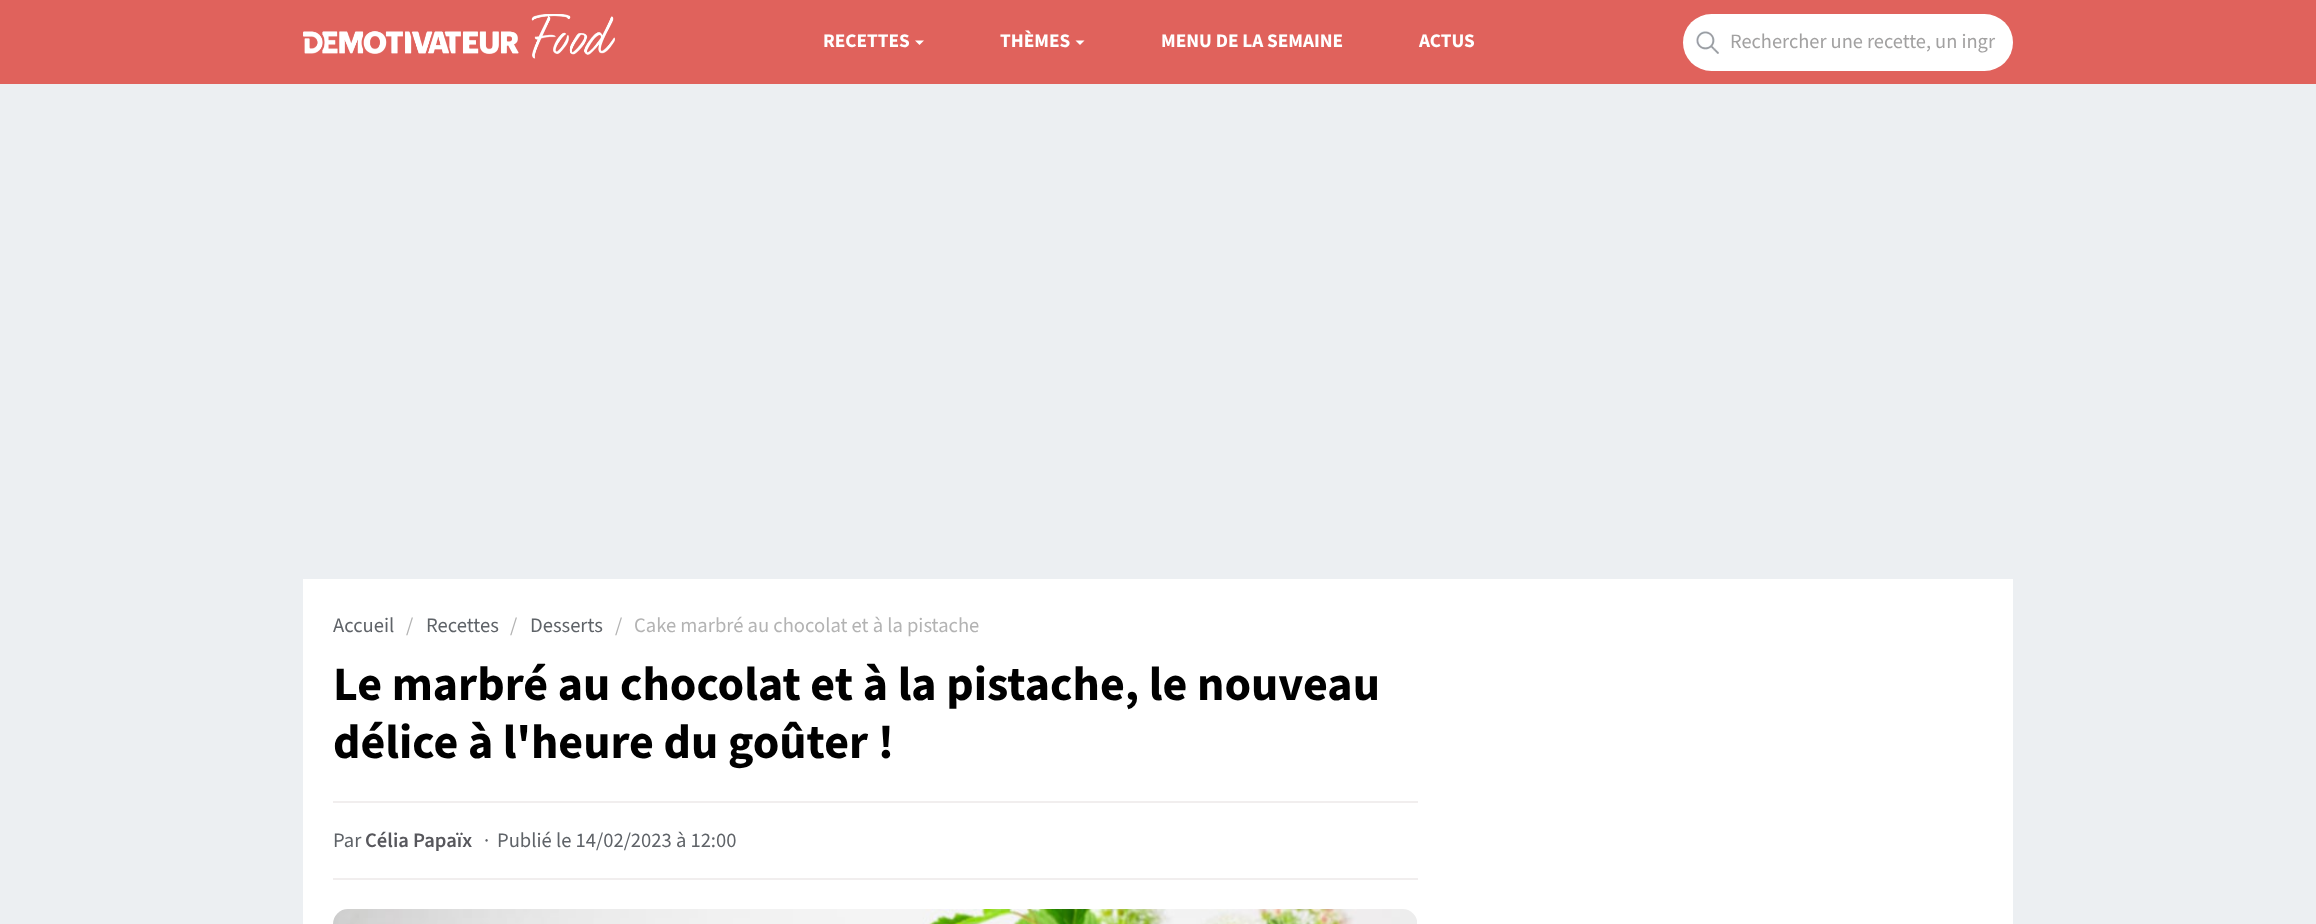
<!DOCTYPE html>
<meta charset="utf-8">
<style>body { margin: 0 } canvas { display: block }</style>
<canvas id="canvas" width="2316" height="924"></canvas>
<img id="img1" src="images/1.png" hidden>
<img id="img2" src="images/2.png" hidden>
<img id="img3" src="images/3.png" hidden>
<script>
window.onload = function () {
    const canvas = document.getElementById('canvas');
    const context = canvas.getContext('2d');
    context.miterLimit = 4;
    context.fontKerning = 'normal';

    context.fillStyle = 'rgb(236, 239, 242)';
    context.fillRect(0, 0, 2316, 924);
    context.fillStyle = 'rgb(224, 98, 92)';
    context.fillRect(0, 0, 2316, 84);
    context.drawImage(document.getElementById('img1'), 303, 14, 312, 45);
    context.fillStyle = 'rgb(255, 255, 255)';
    context.beginPath();
    context.moveTo(915, 40.5);
    context.lineTo(924, 40.5);
    context.lineTo(919.5, 45);
    context.closePath();
    context.fill();
    context.beginPath();
    context.moveTo(1075.5, 40.5);
    context.lineTo(1084.5, 40.5);
    context.lineTo(1080, 45);
    context.closePath();
    context.fill();
    context.beginPath();
    context.roundRect(1683, 14, 330, 57, 28.5);
    context.fill();
    context.drawImage(document.getElementById('img2'), 1696, 31, 23, 23);
    context.fillRect(303, 579, 1710, 345);
    context.fillStyle = 'rgb(241, 238, 238)';
    context.fillRect(333, 801, 1085, 2);
    context.fillRect(333, 878, 1085, 2);
    context.drawImage(document.getElementById('img3'), 333, 909, 1084, 15);
    context.font = 'bold 19.25px "Source Sans 3"';
    context.fillStyle = 'rgb(255, 255, 255)';
    context.fillText('RECETTES', 823, 47);
    context.fillText('THÈMES', 1000, 47);
    context.fillText('MENU DE LA SEMAINE', 1161, 47);
    context.fillText('ACTUS', 1419, 47);
    context.font = '20.4px "Source Sans 3"';
    context.fillStyle = 'rgb(162, 161, 161)';
    context.fillText('Rechercher une recette, un ingr', 1730, 48);
    context.font = '20.6px "Source Sans 3"';
    context.fillStyle = 'rgb(95, 99, 104)';
    context.fillText('Accueil', 333, 632);
    context.fillStyle = 'rgb(179, 179, 179)';
    context.fillText('/', 406, 632);
    context.fillStyle = 'rgb(95, 99, 104)';
    context.fillText('Recettes', 426, 632);
    context.fillStyle = 'rgb(179, 179, 179)';
    context.fillText('/', 510, 632);
    context.fillStyle = 'rgb(95, 99, 104)';
    context.fillText('Desserts', 530, 632);
    context.fillStyle = 'rgb(179, 179, 179)';
    context.fillText('/', 615, 632);
    context.fillText('Cake marbré au chocolat et à la pistache', 634, 632);
    context.font = 'bold 48px "Source Sans 3"';
    context.fillStyle = 'rgb(0, 0, 0)';
    context.fillText('Le marbré au chocolat et à la pistache, le nouveau', 333, 700);
    context.fillText('délice à l\'heure du goûter !', 333, 758);
    context.font = '20.6px "Source Sans 3"';
    context.fillStyle = 'rgb(95, 99, 104)';
    context.fillText('Par', 333, 847);
    context.font = '600 20.6px "Source Sans 3"';
    context.fillStyle = 'rgb(87, 87, 92)';
    context.fillText('Célia Papaïx', 365, 847);
    context.font = '20.6px "Source Sans 3"';
    context.fillStyle = 'rgb(95, 99, 104)';
    context.fillText('·', 484, 847);
    context.fillText('Publié le 14/02/2023 à 12:00', 497, 847);
};
</script>
